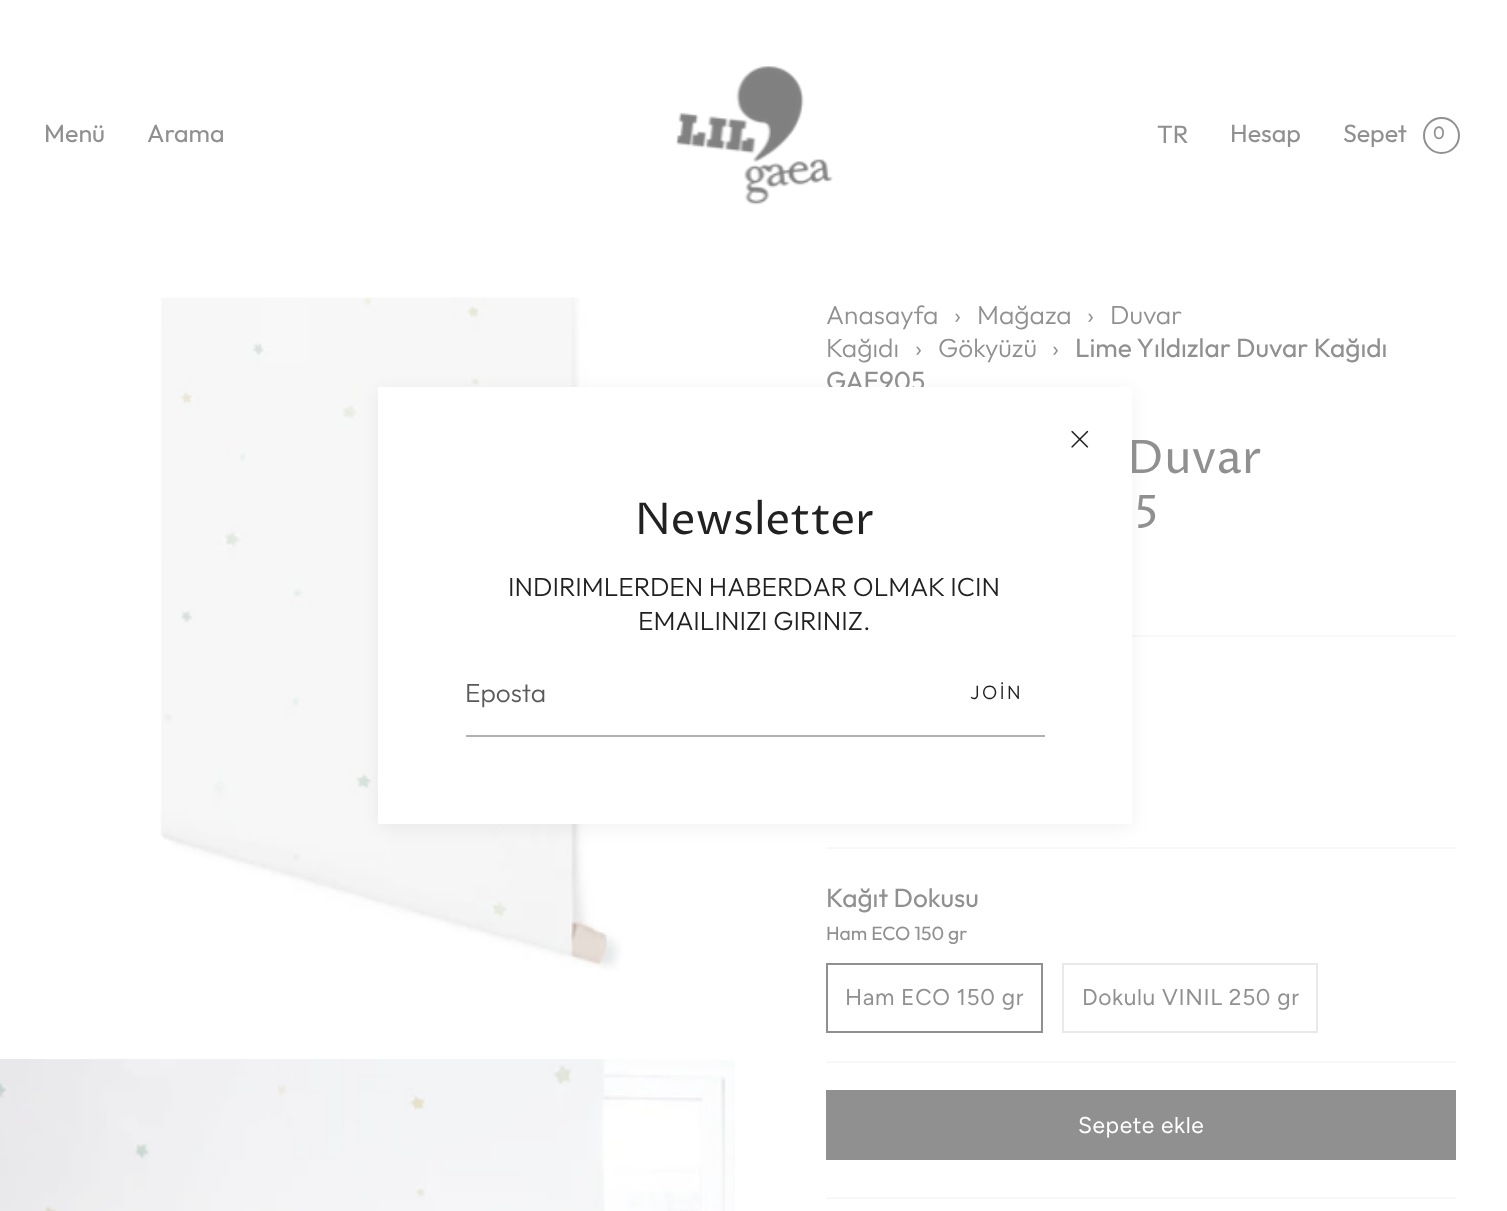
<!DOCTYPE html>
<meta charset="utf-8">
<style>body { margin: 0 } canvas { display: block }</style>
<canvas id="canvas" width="1507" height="1211"></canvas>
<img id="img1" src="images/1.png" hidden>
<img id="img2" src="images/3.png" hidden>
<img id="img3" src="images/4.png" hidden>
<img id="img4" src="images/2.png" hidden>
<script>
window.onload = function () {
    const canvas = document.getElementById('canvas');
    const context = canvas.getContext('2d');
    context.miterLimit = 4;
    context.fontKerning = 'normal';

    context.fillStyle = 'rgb(255, 255, 255)';
    context.fillRect(0, 0, 1507, 1211);
    context.drawImage(document.getElementById('img1'), 675, 65, 158, 140);
    context.beginPath();
    context.arc(1441.5, 135.5, 17.5, 0, 2 * Math.PI);
    context.strokeStyle = 'rgb(144, 144, 144)';
    context.lineWidth = 2;
    context.stroke();
    context.drawImage(document.getElementById('img2'), 160, 297, 463, 674);
    context.fillStyle = 'rgb(248, 248, 248)';
    context.fillRect(1132, 635, 324, 2);
    context.fillRect(826, 847, 630, 2);
    context.fillStyle = 'rgba(0, 0, 0, 0.05)';
    context.filter = 'blur(9px)';
    context.beginPath();
    context.rect(378, 390, 754, 438);
    context.fill();
    context.filter = 'none';
    context.drawImage(document.getElementById('img3'), 0, 1059, 735, 152);
    context.fillStyle = 'rgb(248, 248, 248)';
    context.fillRect(826, 1061, 630, 2);
    context.strokeRect(827, 964, 215, 68);
    context.strokeStyle = 'rgb(233, 233, 233)';
    context.strokeRect(1063, 964, 254, 68);
    context.fillStyle = 'rgb(144, 144, 144)';
    context.fillRect(826, 1090, 630, 70);
    context.fillStyle = 'rgb(248, 248, 248)';
    context.fillRect(826, 1197, 630, 2);
    context.font = '25px Outfit';
    context.fillStyle = 'rgb(144, 144, 144)';
    context.fillText('Menü', 44, 142);
    context.fillText('Arama', 147, 142);
    context.fillText('TR', 1157, 143);
    context.fillText('Hesap', 1230, 142);
    context.fillText('Sepet', 1343, 142);
    context.font = '18px Outfit';
    context.fillText('0', 1433, 139);
    context.font = '300 26.25px Outfit';
    context.fillText('Anasayfa', 826, 324);
    context.fillText('›', 954, 324);
    context.fillText('Mağaza', 977, 324);
    context.fillText('›', 1087, 324);
    context.fillText('Duvar', 1110, 324);
    context.fillText('Kağıdı', 826, 357);
    context.fillText('›', 915, 357);
    context.fillText('Gökyüzü', 938, 357);
    context.fillText('›', 1052, 357);
    context.font = '26.25px Outfit';
    context.fillText('Lime Yıldızlar Duvar Kağıdı', 1075, 357);
    context.fillText('GAE905', 826, 390);
    context.font = '46px Proza Libre';
    context.fillText('Duvar', 1127, 473);
    context.fillStyle = 'rgb(255, 255, 255)';
    context.fillRect(378, 387, 754, 437);
    context.drawImage(document.getElementById('img4'), 1071, 430, 18, 18);
    context.letterSpacing = '2.5px';
    context.font = '300 19.25px Outfit';
    context.fillStyle = 'rgb(33, 33, 33)';
    context.fillText('JOİN', 970, 699);
    context.letterSpacing = '0px';
    context.font = '300 26.25px Outfit';
    context.fillStyle = 'rgb(89, 89, 89)';
    context.fillText('Eposta', 465, 702);
    context.fillStyle = 'rgb(177, 177, 177)';
    context.fillRect(466, 735, 579, 2);
    context.fillStyle = 'rgb(33, 33, 33)';
    context.fillText('EMAILINIZI GIRINIZ.', 638, 630);
    context.fillText('INDIRIMLERDEN HABERDAR OLMAK ICIN', 508, 596);
    context.font = '43.75px Proza Libre';
    context.fillText('Newsletter', 635, 534);
    context.font = '46px Proza Libre';
    context.fillStyle = 'rgb(144, 144, 144)';
    context.fillText('5', 1134, 528);
    context.font = '26.25px Outfit';
    context.fillText('Kağıt Dokusu', 826, 907);
    context.font = '19.25px Outfit';
    context.fillText('Ham ECO 150 gr', 826, 940);
    context.letterSpacing = '0.6px';
    context.font = '22.75px Figtree';
    context.fillText('Ham ECO 150 gr', 845, 1005);
    context.fillText('Dokulu VINIL 250 gr', 1082, 1005);
    context.fillStyle = 'rgb(255, 255, 255)';
    context.fillText('Sepete ekle', 1078, 1133);
};
</script>
